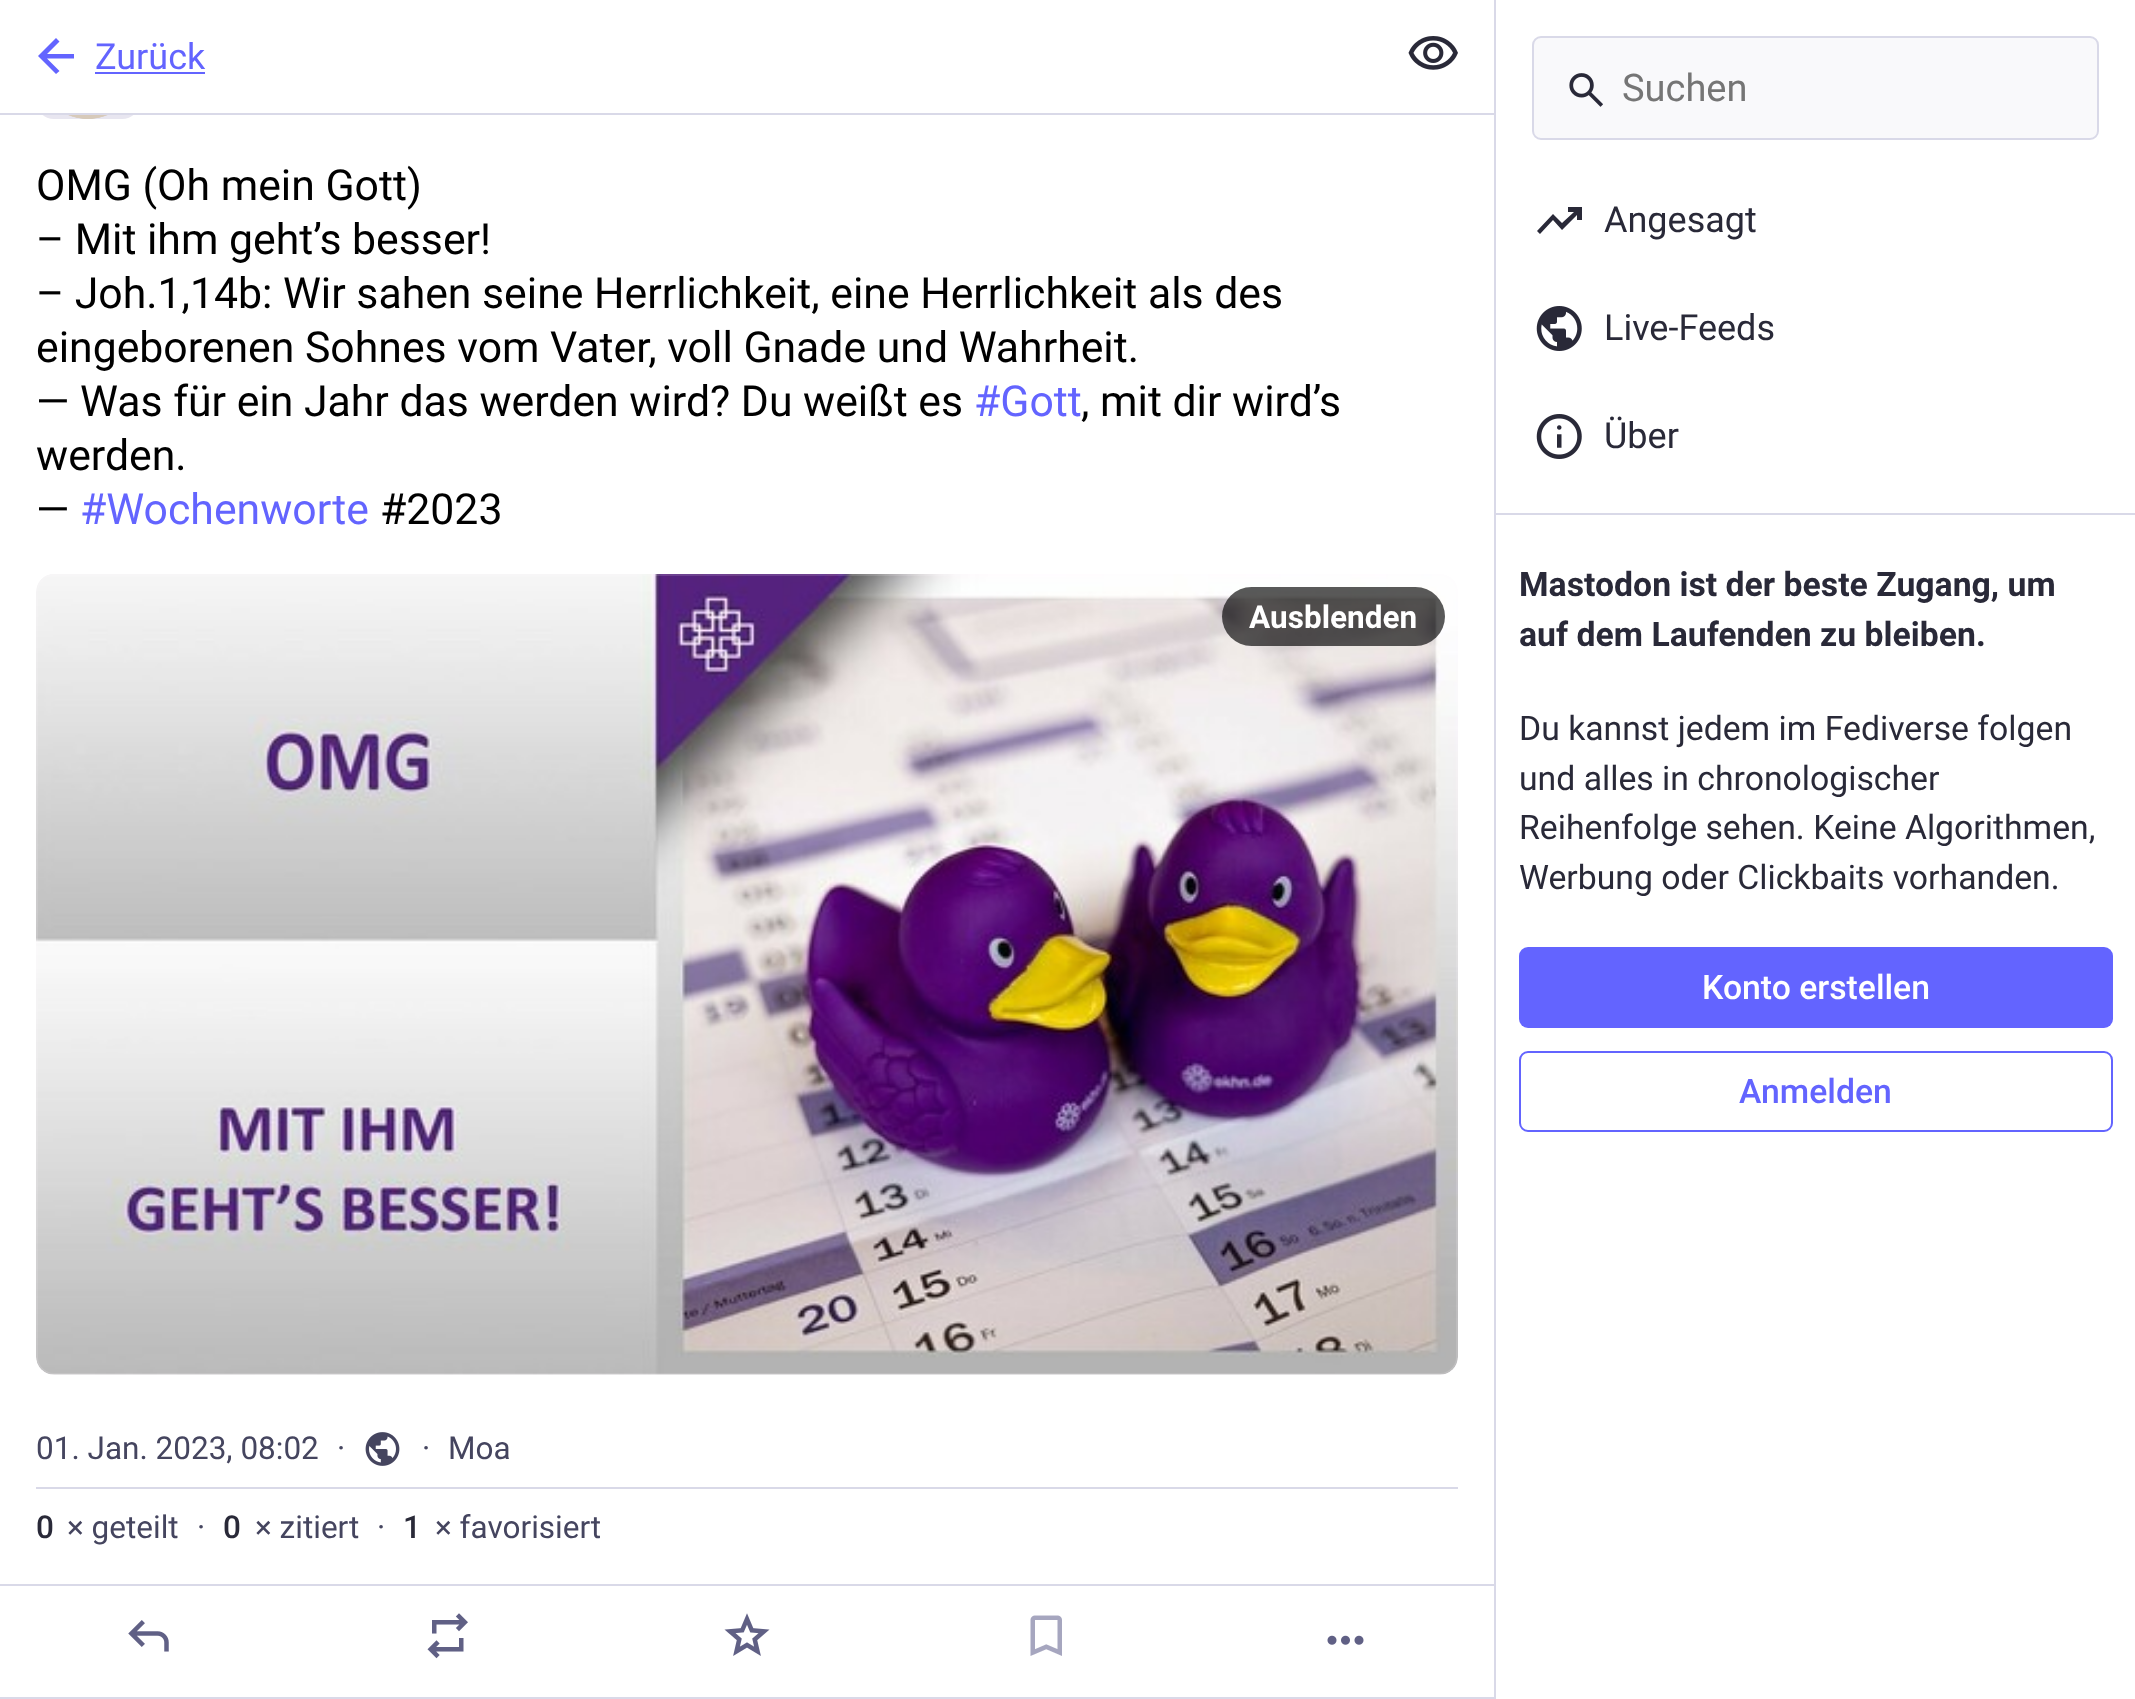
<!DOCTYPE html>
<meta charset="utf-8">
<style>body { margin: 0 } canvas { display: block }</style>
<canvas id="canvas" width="2135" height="1699"></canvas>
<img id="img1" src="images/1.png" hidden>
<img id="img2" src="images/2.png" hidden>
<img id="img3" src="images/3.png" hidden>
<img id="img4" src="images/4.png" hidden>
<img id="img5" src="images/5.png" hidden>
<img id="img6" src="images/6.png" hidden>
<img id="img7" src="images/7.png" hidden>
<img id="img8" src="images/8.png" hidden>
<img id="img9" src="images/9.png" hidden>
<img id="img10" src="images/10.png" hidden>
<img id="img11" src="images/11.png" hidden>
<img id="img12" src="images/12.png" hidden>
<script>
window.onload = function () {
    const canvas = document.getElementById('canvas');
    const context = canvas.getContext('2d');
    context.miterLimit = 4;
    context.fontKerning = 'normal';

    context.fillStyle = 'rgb(255, 255, 255)';
    context.fillRect(0, 0, 2135, 1699);
    context.fillStyle = 'rgb(232, 230, 240)';
    context.beginPath();
    context.roundRect(36, 16, 104, 103, 18);
    context.fill();
    context.fillStyle = 'rgb(255, 255, 255)';
    context.fillRect(36, 16, 104, 97);
    context.fillStyle = 'rgb(217, 217, 232)';
    context.fillRect(0, 113, 1494, 2);
    context.fillStyle = 'rgb(99, 100, 255)';
    context.beginPath();
    context.moveTo(47, 58.5);
    context.lineTo(59.5, 71);
    context.lineTo(56, 74);
    context.lineTo(38, 56);
    context.lineTo(56, 38);
    context.lineTo(59.5, 41.5);
    context.lineTo(47, 54);
    context.lineTo(74, 54);
    context.lineTo(74, 58.5);
    context.closePath();
    context.fill();
    context.fillRect(95, 72, 110, 2);
    context.drawImage(document.getElementById('img1'), 1408, 36, 50, 34);
    context.drawImage(document.getElementById('img2'), 68, 115, 40, 4);
    context.drawImage(document.getElementById('img3'), 36, 574, 1422, 801);
    context.beginPath();
    context.roundRect(37, 575, 1420, 799, 17);
    context.strokeStyle = 'rgba(252, 248, 255, 0.15)';
    context.lineWidth = 2;
    context.stroke();
    context.fillStyle = 'rgba(0, 0, 0, 0.65)';
    context.beginPath();
    context.roundRect(1222, 587, 223, 59, 29.5);
    context.fill();
    context.fillStyle = 'rgb(217, 217, 232)';
    context.fillRect(36, 1487, 1422, 2);
    context.drawImage(document.getElementById('img4'), 365, 1432, 35, 34);
    context.fillRect(0, 1584, 1494, 2);
    context.fillRect(0, 1697, 1494, 2);
    context.drawImage(document.getElementById('img5'), 128, 1620, 41, 32);
    context.drawImage(document.getElementById('img6'), 427, 1613, 41, 46);
    context.drawImage(document.getElementById('img7'), 724, 1613, 46, 43);
    context.drawImage(document.getElementById('img8'), 1030, 1615, 32, 41);
    context.drawImage(document.getElementById('img9'), 1327, 1635, 37, 10);
    context.fillRect(1494, 0, 2, 1699);
    context.fillStyle = 'rgb(249, 249, 251)';
    context.beginPath();
    context.roundRect(1533, 37, 565, 102, 8);
    context.fill();
    context.strokeStyle = 'rgb(217, 217, 232)';
    context.stroke();
    context.drawImage(document.getElementById('img10'), 1569, 73, 34, 34);
    context.fillStyle = 'rgb(41, 41, 56)';
    context.beginPath();
    context.moveTo(1540, 234);
    context.lineTo(1537, 231);
    context.lineTo(1553, 214);
    context.lineTo(1562, 223);
    context.lineTo(1574, 212);
    context.lineTo(1568, 212);
    context.lineTo(1568, 207);
    context.lineTo(1582, 207);
    context.lineTo(1582, 220);
    context.lineTo(1577, 220);
    context.lineTo(1577, 215);
    context.lineTo(1562, 230);
    context.lineTo(1553, 220);
    context.closePath();
    context.fill();
    context.drawImage(document.getElementById('img11'), 1536, 306, 46, 45);
    context.drawImage(document.getElementById('img12'), 1536, 414, 46, 45);
    context.fillStyle = 'rgb(217, 217, 232)';
    context.fillRect(1496, 513, 639, 2);
    context.fillStyle = 'rgb(99, 100, 255)';
    context.beginPath();
    context.roundRect(1519, 947, 594, 81, 9);
    context.fill();
    context.beginPath();
    context.roundRect(1520, 1052, 592, 79, 8);
    context.strokeStyle = 'rgb(99, 100, 255)';
    context.stroke();
    context.font = '36px Roboto';
    context.fillText('Zurück', 95, 69);
    context.font = '42.75px Roboto';
    context.fillStyle = 'rgb(0, 0, 0)';
    context.fillText('OMG (Oh mein Gott)', 36, 200);
    context.fillText('– Mit ihm geht’s besser!', 36, 254);
    context.fillText('– Joh.1,14b: Wir sahen seine Herrlichkeit, eine Herrlichkeit als des', 36, 308);
    context.fillText('eingeborenen Sohnes vom Vater, voll Gnade und Wahrheit.', 36, 362);
    context.fillText('— Was für ein Jahr das werden wird? Du weißt es', 36, 416);
    context.fillStyle = 'rgb(99, 100, 255)';
    context.fillText('#Gott', 974, 416);
    context.fillStyle = 'rgb(0, 0, 0)';
    context.fillText(', mit dir wird’s', 1081, 416);
    context.fillText('werden.', 36, 470);
    context.fillText('—', 36, 524);
    context.fillStyle = 'rgb(99, 100, 255)';
    context.fillText('#Wochenworte', 80, 524);
    context.fillStyle = 'rgb(0, 0, 0)';
    context.fillText('#2023', 380, 524);
    context.font = 'bold 31.5px Roboto';
    context.fillStyle = 'rgb(255, 255, 255)';
    context.fillText('Ausblenden', 1249, 628);
    context.font = '31.5px Roboto';
    context.fillStyle = 'rgb(69, 69, 95)';
    context.fillText('01. Jan. 2023, 08:02', 36, 1459);
    context.fillText('·', 337, 1459);
    context.fillText('·', 422, 1459);
    context.fillText('Moa', 448, 1459);
    context.font = '500 31.5px Roboto';
    context.fillStyle = 'rgb(41, 41, 56)';
    context.fillText('0', 36, 1538);
    context.font = '31.5px Roboto';
    context.fillStyle = 'rgb(69, 69, 95)';
    context.fillText('× geteilt', 67, 1538);
    context.fillText('·', 197, 1538);
    context.font = '500 31.5px Roboto';
    context.fillStyle = 'rgb(41, 41, 56)';
    context.fillText('0', 223, 1538);
    context.font = '31.5px Roboto';
    context.fillStyle = 'rgb(69, 69, 95)';
    context.fillText('× zitiert', 255, 1538);
    context.fillText('·', 377, 1538);
    context.font = '500 31.5px Roboto';
    context.fillStyle = 'rgb(41, 41, 56)';
    context.fillText('1', 403, 1538);
    context.font = '31.5px Roboto';
    context.fillStyle = 'rgb(69, 69, 95)';
    context.fillText('× favorisiert', 435, 1538);
    context.font = '38px Roboto';
    context.fillStyle = 'rgb(117, 117, 117)';
    context.fillText('Suchen', 1622, 101);
    context.font = '36px Roboto';
    context.fillStyle = 'rgb(41, 41, 56)';
    context.fillText('Angesagt', 1604, 232);
    context.fillText('Live-Feeds', 1604, 340);
    context.fillText('Über', 1604, 448);
    context.font = 'bold 33.75px Roboto';
    context.fillText('Mastodon ist der beste Zugang, um', 1519, 596);
    context.fillText('auf dem Laufenden zu bleiben.', 1519, 646);
    context.font = '33.75px Roboto';
    context.fillText('Du kannst jedem im Fediverse folgen', 1519, 740);
    context.fillText('und alles in chronologischer', 1519, 790);
    context.fillText('Reihenfolge sehen. Keine Algorithmen,', 1519, 839);
    context.fillText('Werbung oder Clickbaits vorhanden.', 1519, 889);
    context.font = '500 33.75px Roboto';
    context.fillStyle = 'rgb(255, 255, 255)';
    context.fillText('Konto erstellen', 1702, 999);
    context.fillStyle = 'rgb(99, 100, 255)';
    context.fillText('Anmelden', 1739, 1103);
};
</script>
